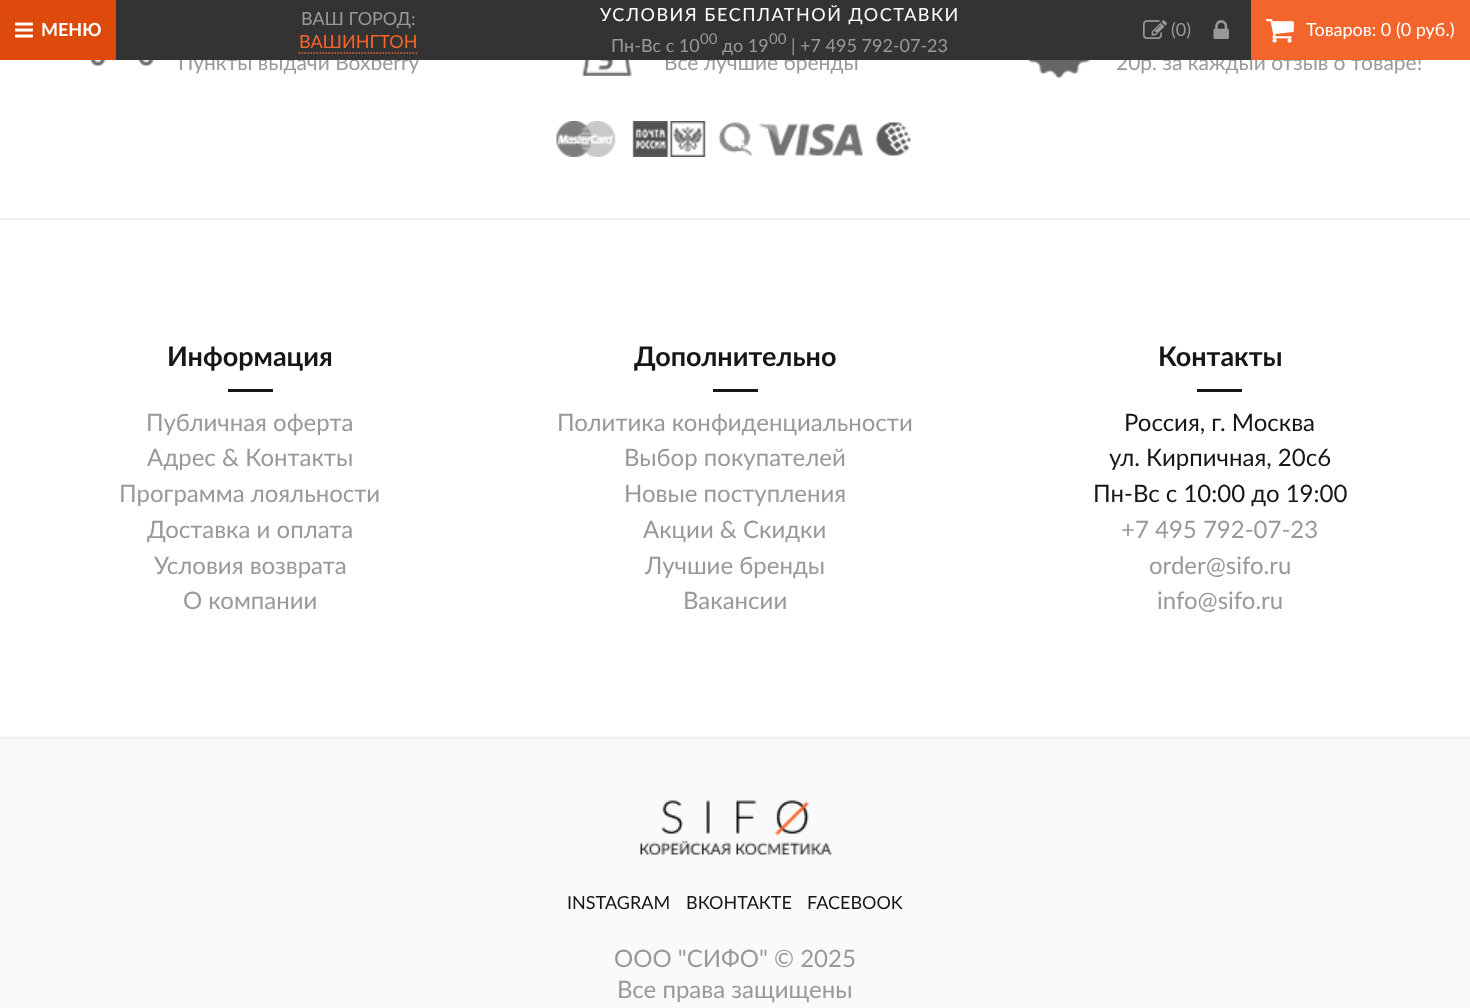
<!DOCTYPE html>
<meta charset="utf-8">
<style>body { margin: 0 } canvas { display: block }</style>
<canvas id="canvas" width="1470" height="1008"></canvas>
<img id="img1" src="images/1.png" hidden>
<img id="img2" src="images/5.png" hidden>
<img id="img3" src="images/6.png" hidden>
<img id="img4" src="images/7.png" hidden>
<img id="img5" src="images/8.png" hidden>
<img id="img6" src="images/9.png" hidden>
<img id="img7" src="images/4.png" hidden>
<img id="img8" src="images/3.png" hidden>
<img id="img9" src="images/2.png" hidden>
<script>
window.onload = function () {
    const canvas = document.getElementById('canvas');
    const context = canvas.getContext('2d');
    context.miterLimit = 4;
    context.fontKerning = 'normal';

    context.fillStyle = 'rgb(255, 255, 255)';
    context.fillRect(0, 0, 1470, 1008);
    context.fillStyle = 'rgb(222, 74, 12)';
    context.fillRect(0, 0, 116, 60);
    context.drawImage(document.getElementById('img1'), 15, 22, 18, 16);
    context.fillStyle = 'rgb(238, 238, 238)';
    context.fillRect(0, 218, 1470, 2);
    context.drawImage(document.getElementById('img2'), 89, 60, 65, 6);
    context.drawImage(document.getElementById('img3'), 582, 60, 50, 16);
    context.drawImage(document.getElementById('img4'), 1028, 60, 63, 18);
    context.drawImage(document.getElementById('img5'), 556, 121, 355, 36);
    context.fillStyle = 'rgb(22, 22, 22)';
    context.fillRect(228, 389, 45, 3);
    context.fillRect(713, 389, 45, 3);
    context.fillRect(1197, 389, 45, 3);
    context.fillStyle = 'rgb(250, 250, 250)';
    context.fillRect(0, 739, 1470, 269);
    context.fillStyle = 'rgb(238, 238, 238)';
    context.fillRect(0, 737, 1470, 2);
    context.drawImage(document.getElementById('img6'), 640, 800, 192, 55);
    context.font = 'bold 18px Lato';
    context.fillStyle = 'rgb(255, 255, 255)';
    context.fillText('МЕНЮ', 41, 36);
    context.font = '21px Lato';
    context.fillStyle = 'rgb(153, 153, 153)';
    context.fillText('Пункты выдачи Boxberry', 178, 70);
    context.fillText('Все лучшие бренды', 664, 70);
    context.fillText('20р. за каждый отзыв о товаре!', 1116, 70);
    context.fillStyle = 'rgb(243, 101, 42)';
    context.fillRect(1251, 0, 219, 60);
    context.font = '18px Lato';
    context.fillStyle = 'rgb(255, 255, 255)';
    context.fillText('Товаров: 0 (0 руб.)', 1306, 36);
    context.drawImage(document.getElementById('img7'), 1266, 19, 28, 24);
    context.fillStyle = 'rgb(51, 51, 51)';
    context.fillRect(116, 0, 1135, 60);
    context.drawImage(document.getElementById('img8'), 1213, 20, 16, 19);
    context.fillStyle = 'rgb(153, 153, 153)';
    context.fillText('(0)', 1171, 36);
    context.drawImage(document.getElementById('img9'), 1143, 20, 24, 19);
    context.fillText('| +7 495 792-07-23', 791, 52);
    context.font = '15px Lato';
    context.fillText('00', 769, 44);
    context.font = '18px Lato';
    context.fillText('до 19', 722, 52);
    context.font = '15px Lato';
    context.fillText('00', 700, 44);
    context.font = '18px Lato';
    context.fillText('Пн-Вс с 10', 611, 52);
    context.letterSpacing = '1.5px';
    context.fillStyle = 'rgb(255, 255, 255)';
    context.fillText('УСЛОВИЯ БЕСПЛАТНОЙ ДОСТАВКИ', 600, 21);
    context.letterSpacing = '0px';
    context.fillStyle = 'rgb(243, 101, 42)';
    context.fillText('ВАШИНГТОН', 299, 48);
    context.beginPath();
    context.moveTo(298.5, 53);
    context.lineTo(417, 53);
    context.strokeStyle = 'rgb(243, 101, 42)';
    context.lineWidth = 1.5;
    context.setLineDash([1.5, 1.5]);
    context.stroke();
    context.fillStyle = 'rgb(153, 153, 153)';
    context.fillText('ВАШ ГОРОД:', 301, 25);
    context.font = 'bold 27px Lato';
    context.fillStyle = 'rgb(22, 22, 22)';
    context.fillText('Информация', 167, 366);
    context.font = '24px Lato';
    context.fillStyle = 'rgb(153, 153, 153)';
    context.fillText('Публичная оферта', 146, 431);
    context.fillText('Адрес & Контакты', 147, 466);
    context.fillText('Программа лояльности', 119, 502);
    context.fillText('Доставка и оплата', 147, 538);
    context.fillText('Условия возврата', 154, 574);
    context.fillText('О компании', 183, 609);
    context.font = 'bold 27px Lato';
    context.fillStyle = 'rgb(22, 22, 22)';
    context.fillText('Дополнительно', 634, 366);
    context.font = '24px Lato';
    context.fillStyle = 'rgb(153, 153, 153)';
    context.fillText('Политика конфиденциальности', 557, 431);
    context.fillText('Выбор покупателей', 624, 466);
    context.fillText('Новые поступления', 624, 502);
    context.fillText('Акции & Скидки', 643, 538);
    context.fillText('Лучшие бренды', 645, 574);
    context.fillText('Вакансии', 683, 609);
    context.font = 'bold 27px Lato';
    context.fillStyle = 'rgb(22, 22, 22)';
    context.fillText('Контакты', 1158, 366);
    context.font = '24px Lato';
    context.fillText('Россия, г. Москва', 1124, 431);
    context.fillText('ул. Кирпичная, 20с6', 1109, 466);
    context.fillText('Пн-Вс с 10:00 до 19:00', 1093, 502);
    context.fillStyle = 'rgb(153, 153, 153)';
    context.fillText('+7 495 792-07-23', 1121, 538);
    context.fillText('order@sifo.ru', 1149, 574);
    context.fillText('info@sifo.ru', 1157, 609);
    context.font = '18px Lato';
    context.fillStyle = 'rgb(22, 22, 22)';
    context.fillText('INSTAGRAM', 567, 909);
    context.fillText('ВКОНТАКТЕ', 686, 909);
    context.fillText('FACEBOOK', 807, 909);
    context.font = '24px Lato';
    context.fillStyle = 'rgb(153, 153, 153)';
    context.fillText('ООО "СИФО" © 2025', 614, 967);
    context.fillText('Все права защищены', 617, 998);
};
</script>
